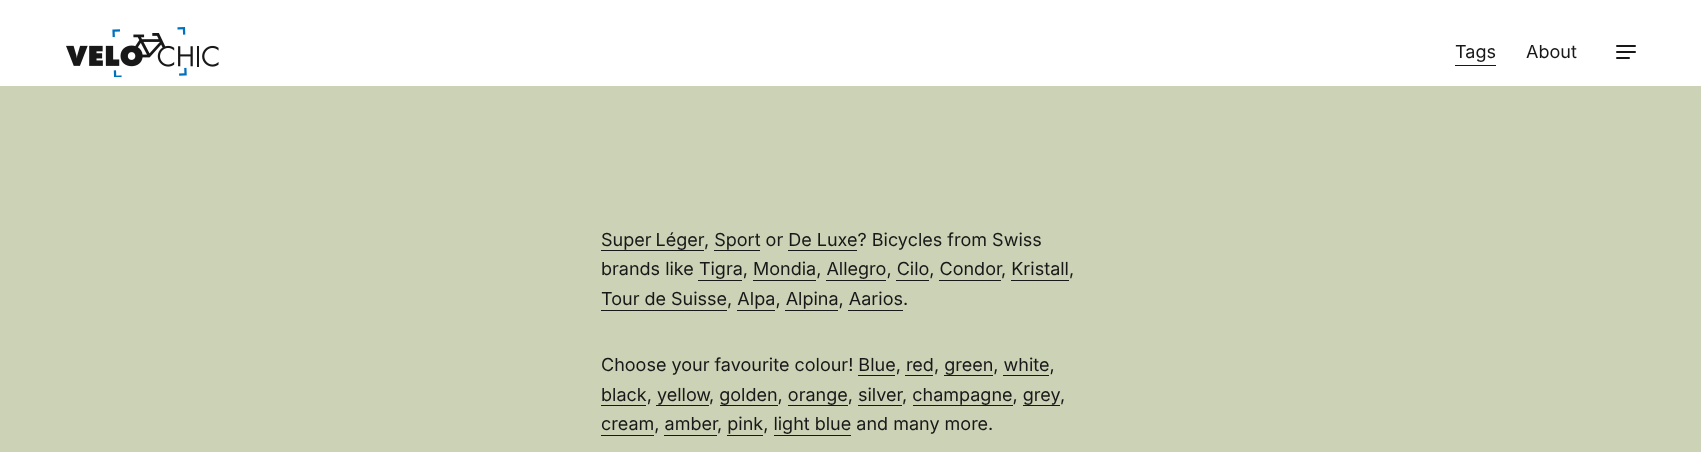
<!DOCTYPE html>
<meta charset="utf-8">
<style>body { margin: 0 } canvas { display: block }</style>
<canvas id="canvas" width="1701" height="452"></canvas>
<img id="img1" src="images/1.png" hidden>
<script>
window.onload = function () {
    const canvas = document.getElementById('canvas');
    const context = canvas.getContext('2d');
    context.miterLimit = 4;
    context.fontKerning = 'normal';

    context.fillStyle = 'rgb(203, 210, 181)';
    context.fillRect(0, 0, 1701, 452);
    context.fillStyle = 'rgb(255, 255, 255)';
    context.fillRect(0, 0, 1701, 86);
    context.drawImage(document.getElementById('img1'), 66, 27, 153, 50);
    context.fillStyle = 'rgb(24, 24, 24)';
    context.fillRect(1455, 65, 41, 1);
    context.beginPath();
    context.roundRect(1616, 45, 20, 2, 1);
    context.fill();
    context.beginPath();
    context.roundRect(1616, 51, 20, 2, 1);
    context.fill();
    context.beginPath();
    context.roundRect(1616, 57, 14, 2, 1);
    context.fill();
    context.fillRect(601, 250, 103, 1);
    context.fillRect(714, 250, 46, 1);
    context.fillRect(788, 250, 69, 1);
    context.fillRect(698, 280, 44, 1);
    context.fillRect(753, 280, 63, 1);
    context.fillRect(826, 280, 60, 1);
    context.fillRect(896, 280, 33, 1);
    context.fillRect(939, 280, 62, 1);
    context.fillRect(1011, 280, 58, 1);
    context.fillRect(601, 310, 126, 1);
    context.fillRect(737, 310, 38, 1);
    context.fillRect(785, 310, 53, 1);
    context.fillRect(848, 310, 55, 1);
    context.fillRect(858, 375, 37, 1);
    context.fillRect(905, 375, 28, 1);
    context.fillRect(944, 375, 49, 1);
    context.fillRect(1003, 375, 46, 1);
    context.fillRect(601, 405, 45, 1);
    context.fillRect(656, 405, 53, 1);
    context.fillRect(720, 405, 58, 1);
    context.fillRect(788, 405, 60, 1);
    context.fillRect(858, 405, 44, 1);
    context.fillRect(913, 405, 100, 1);
    context.fillRect(1023, 405, 37, 1);
    context.fillRect(601, 435, 53, 1);
    context.fillRect(664, 435, 53, 1);
    context.fillRect(727, 435, 36, 1);
    context.fillRect(774, 435, 77, 1);
    context.font = '18px Inter';
    context.fillText('Tags', 1455, 58);
    context.fillText('About', 1526, 58);
    context.wordSpacing = '-1px';
    context.fillText('Super Léger', 601, 246);
    context.wordSpacing = '0px';
    context.fillText(', Sport or De Luxe? Bicycles from Swiss', 704, 246);
    context.fillText('brands like Tigra, Mondia, Allegro, Cilo, Condor', 601, 275);
    context.fillText(', Kristall,', 1001, 275);
    context.fillText('Tour de Suisse, Alpa, Alpina, Aarios.', 601, 305);
    context.fillText('Choose your favourite colour! Blue, red, green, white,', 601, 371);
    context.fillText('black, yellow', 601, 401);
    context.fillText(', golden, orange, silver', 709, 401);
    context.fillText(', champagne, grey', 902, 401);
    context.fillText(',', 1060, 401);
    context.fillText('cream, amber', 601, 430);
    context.fillText(', pink, light blue and many more.', 717, 430);
};
</script>
